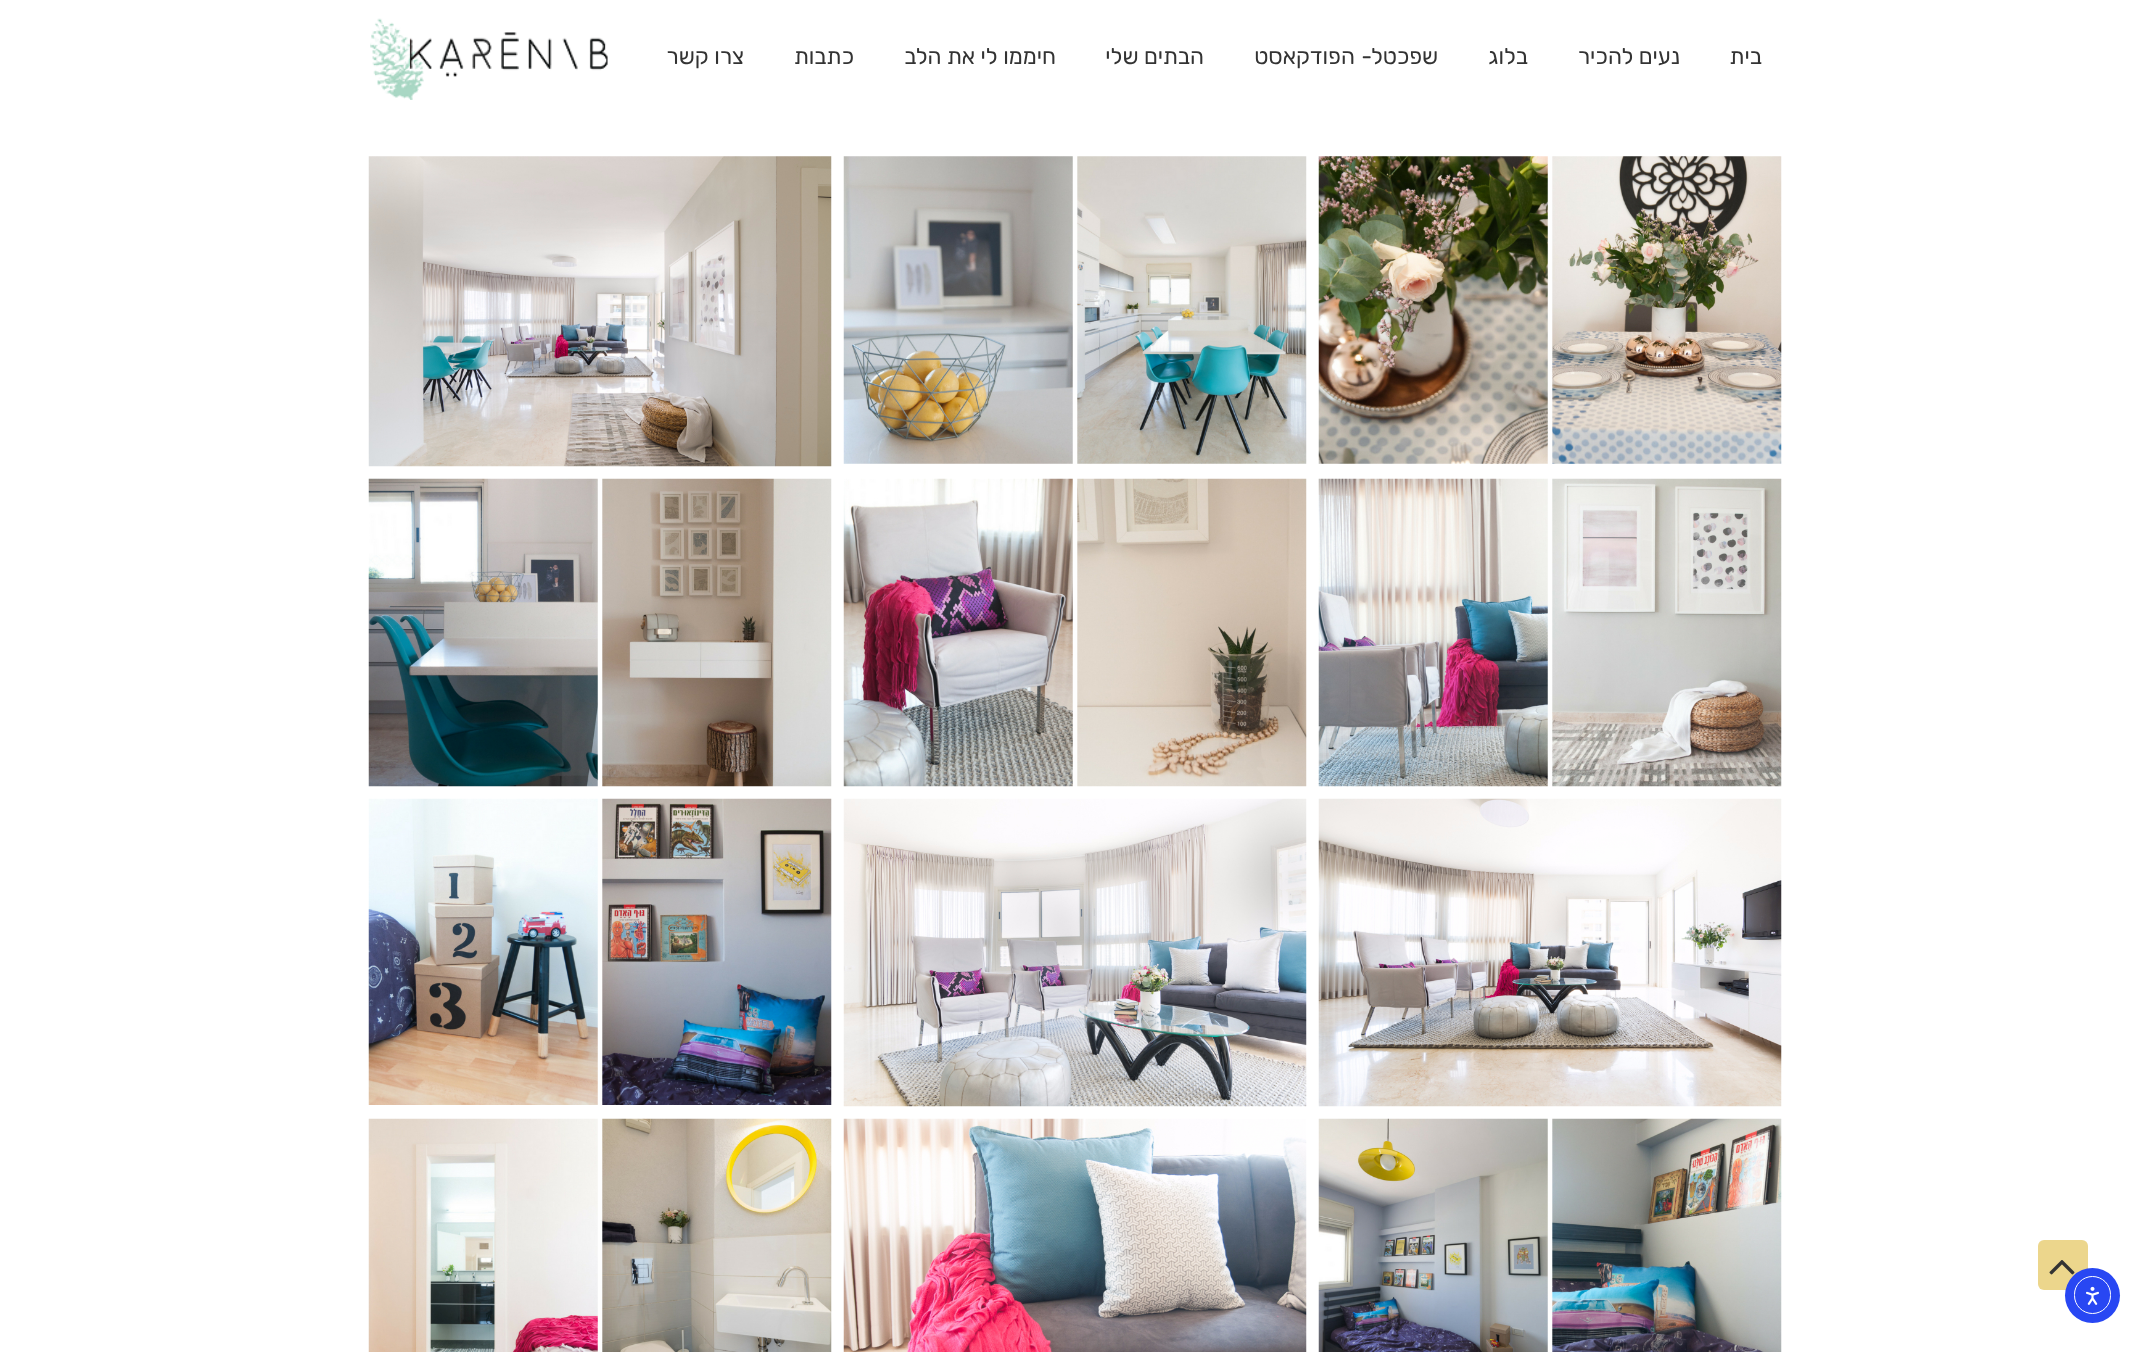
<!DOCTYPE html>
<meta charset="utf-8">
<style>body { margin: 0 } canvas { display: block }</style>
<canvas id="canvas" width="2150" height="1352"></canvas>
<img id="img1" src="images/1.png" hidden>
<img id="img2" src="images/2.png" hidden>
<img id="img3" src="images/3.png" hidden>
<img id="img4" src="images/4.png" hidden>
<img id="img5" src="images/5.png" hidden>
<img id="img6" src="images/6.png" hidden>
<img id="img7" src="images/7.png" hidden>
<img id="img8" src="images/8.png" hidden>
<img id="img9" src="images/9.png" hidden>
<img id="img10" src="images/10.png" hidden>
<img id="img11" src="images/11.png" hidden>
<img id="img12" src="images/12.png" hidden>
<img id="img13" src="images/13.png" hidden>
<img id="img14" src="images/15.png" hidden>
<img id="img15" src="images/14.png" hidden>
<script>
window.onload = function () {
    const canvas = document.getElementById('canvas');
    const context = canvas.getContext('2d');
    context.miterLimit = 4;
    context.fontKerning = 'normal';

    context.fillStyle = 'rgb(255, 255, 255)';
    context.fillRect(0, 0, 2150, 1352);
    context.drawImage(document.getElementById('img1'), 370, 18, 238, 82);
    context.drawImage(document.getElementById('img2'), 1318, 156, 464, 308);
    context.drawImage(document.getElementById('img3'), 843, 156, 464, 308);
    context.drawImage(document.getElementById('img4'), 368, 156, 464, 311);
    context.drawImage(document.getElementById('img5'), 1318, 478, 464, 309);
    context.drawImage(document.getElementById('img6'), 843, 478, 464, 309);
    context.drawImage(document.getElementById('img7'), 368, 478, 464, 309);
    context.drawImage(document.getElementById('img8'), 1318, 798, 464, 309);
    context.drawImage(document.getElementById('img9'), 843, 798, 464, 309);
    context.drawImage(document.getElementById('img10'), 368, 798, 464, 307);
    context.drawImage(document.getElementById('img11'), 1318, 1118, 464, 234);
    context.drawImage(document.getElementById('img12'), 843, 1118, 464, 234);
    context.drawImage(document.getElementById('img13'), 368, 1118, 464, 234);
    context.fillStyle = 'rgb(236, 214, 140)';
    context.beginPath();
    context.roundRect(2038, 1240, 50, 50, 6);
    context.fill();
    context.drawImage(document.getElementById('img14'), 2049, 1260, 26, 15);
    context.fillStyle = 'rgb(40, 71, 243)';
    context.beginPath();
    context.arc(2092.5, 1295.5, 27.5, 0, 2 * Math.PI);
    context.fill();
    context.beginPath();
    context.roundRect(2074.5, 1276.5, 36, 37, 18);
    context.strokeStyle = 'rgb(255, 255, 255)';
    context.stroke();
    context.drawImage(document.getElementById('img15'), 2086, 1286, 13, 19);
    context.direction = 'rtl';
    context.font = '22.5px Rubik';
    context.fillStyle = 'rgb(51, 51, 51)';
    context.fillText('בית', 1762, 64);
    context.fillText('נעים להכיר', 1680, 64);
    context.fillText('בלוג', 1528, 64);
    context.wordSpacing = '1px';
    context.fillText('שפכטל- הפודקאסט', 1438, 64);
    context.wordSpacing = '0px';
    context.fillText('הבתים שלי', 1204, 64);
    context.fillText('חיממו לי את הלב', 1056, 64);
    context.fillText('כתבות', 854, 64);
    context.fillText('צרו קשר', 744, 64);
};
</script>
